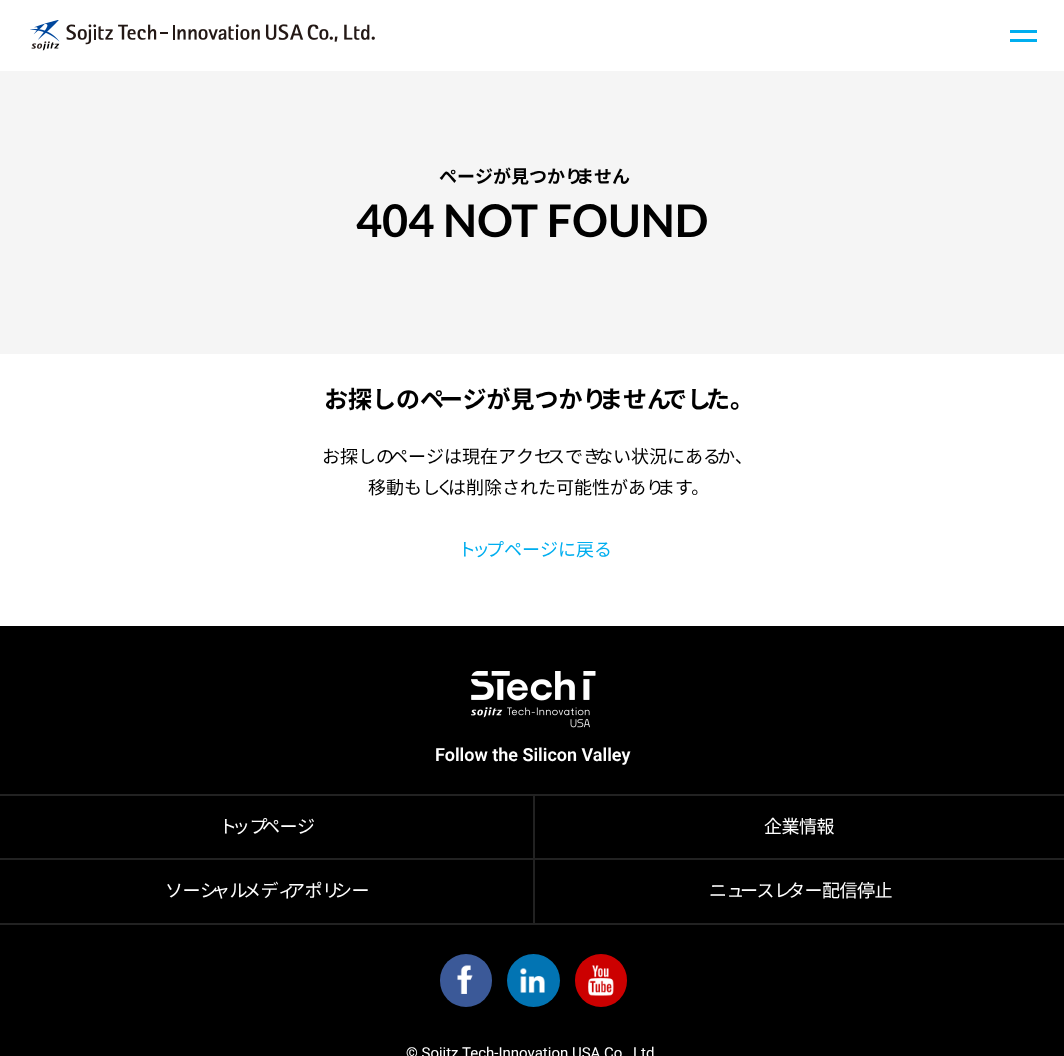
<!DOCTYPE html>
<meta charset="utf-8">
<style>body { margin: 0 } canvas { display: block }</style>
<canvas id="canvas" width="1064" height="1056"></canvas>
<img id="img1" src="images/1.png" hidden>
<img id="img2" src="images/2.png" hidden>
<img id="img3" src="images/3.png" hidden>
<img id="img4" src="images/4.png" hidden>
<img id="img5" src="images/5.png" hidden>
<script>
window.onload = function () {
    const canvas = document.getElementById('canvas');
    const context = canvas.getContext('2d');
    context.miterLimit = 4;
    context.fontKerning = 'normal';

    context.fillStyle = 'rgb(255, 255, 255)';
    context.fillRect(0, 0, 1064, 1056);
    context.drawImage(document.getElementById('img1'), 30, 20, 345, 31);
    context.fillStyle = 'rgb(0, 174, 239)';
    context.fillRect(1010, 30, 27, 3);
    context.fillRect(1010, 39, 27, 3);
    context.fillStyle = 'rgb(245, 245, 245)';
    context.fillRect(0, 71, 1064, 283);
    context.fillStyle = 'rgb(0, 0, 0)';
    context.fillRect(0, 626, 1064, 430);
    context.drawImage(document.getElementById('img2'), 471, 671, 125, 57);
    context.fillStyle = 'rgb(34, 34, 34)';
    context.fillRect(0, 923, 1064, 2);
    context.fillRect(0, 794, 1064, 2);
    context.fillRect(533, 794, 2, 64);
    context.fillRect(0, 858, 1064, 2);
    context.fillRect(533, 858, 2, 65);
    context.fillStyle = 'rgb(59, 89, 152)';
    context.beginPath();
    context.roundRect(440, 954, 52, 53, 26);
    context.fill();
    context.drawImage(document.getElementById('img3'), 457, 965, 16, 29);
    context.fillStyle = 'rgb(2, 116, 179)';
    context.beginPath();
    context.arc(533.5, 980.5, 26.5, 0, 2 * Math.PI);
    context.fill();
    context.drawImage(document.getElementById('img4'), 520, 968, 25, 25);
    context.fillStyle = 'rgb(204, 0, 0)';
    context.beginPath();
    context.roundRect(575, 954, 52, 53, 26);
    context.fill();
    context.drawImage(document.getElementById('img5'), 588, 965, 26, 31);
    context.font = 'bold 18px Noto Sans JP';
    context.fillStyle = 'rgb(0, 0, 0)';
    context.fillText('ページが見つかり', 439, 183);
    context.fillText('ません', 576, 183);
    context.font = 'bold 45px Lato';
    context.fillText('404 NOT FOUND', 356, 237);
    context.font = 'bold 24px Noto Sans JP';
    context.fillText('お探しのペ', 324, 408);
    context.fillText('ージが見つかり', 439, 408);
    context.fillText('ません', 599, 408);
    context.fillText('でし', 663, 408);
    context.fillText('た。', 706, 408);
    context.font = '18px Noto Sans JP';
    context.fillText('お探しの', 322, 463);
    context.fillText('ページは現在アクセ', 390, 463);
    context.fillText('スでき', 547, 463);
    context.fillText('ない状況にある', 595, 463);
    context.fillText('か、', 717, 463);
    context.fillText('移動もし', 368, 494);
    context.fillText('く', 436, 494);
    context.fillText('は削除された可能性があり', 448, 494);
    context.fillText('ます。', 657, 494);
    context.fillStyle = 'rgb(0, 174, 239)';
    context.fillText('ト', 458, 556);
    context.fillText('ッ', 472, 556);
    context.fillText('プページに戻る', 486, 556);
    context.font = '600 18px Roboto';
    context.fillStyle = 'rgb(255, 255, 255)';
    context.fillText('Follow the Silicon Valley', 435, 761);
    context.letterSpacing = '-0.5px';
    context.font = '18px Noto Sans JP';
    context.fillText('ト', 219, 833);
    context.fillText('ップ', 232, 833);
    context.fillText('ページ', 262, 833);
    context.fillText('企業情報', 764, 833);
    context.fillText('ソーシ', 165, 897);
    context.fillText('ャル', 212, 897);
    context.fillText('メディ', 243, 897);
    context.fillText('アポリ', 287, 897);
    context.fillText('シー', 334, 897);
    context.fillText('ニュ', 709, 897);
    context.fillText('ースレ', 740, 897);
    context.fillText('ター配信停止', 787, 897);
    context.letterSpacing = '0px';
    context.font = '15px Roboto';
    context.fillText('© Sojitz Tech-Innovation USA Co', 406, 1058);
    context.fillText('Ltd', 633, 1058);
};
</script>
